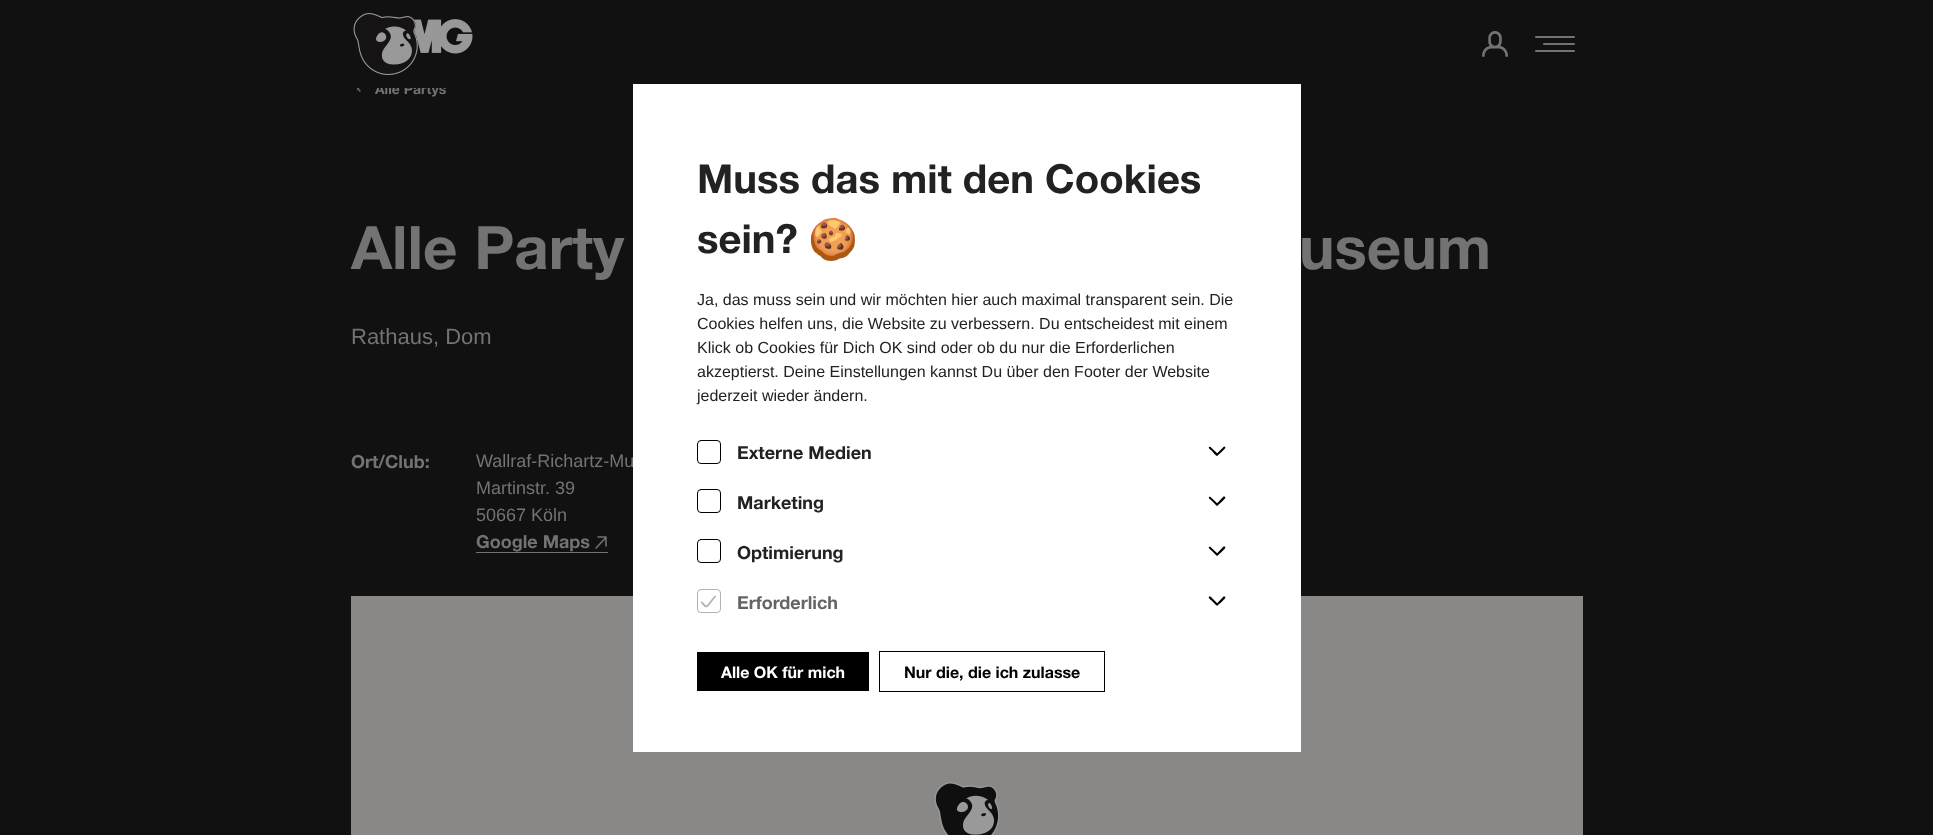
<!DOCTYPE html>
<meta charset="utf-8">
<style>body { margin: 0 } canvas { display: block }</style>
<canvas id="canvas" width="1933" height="835"></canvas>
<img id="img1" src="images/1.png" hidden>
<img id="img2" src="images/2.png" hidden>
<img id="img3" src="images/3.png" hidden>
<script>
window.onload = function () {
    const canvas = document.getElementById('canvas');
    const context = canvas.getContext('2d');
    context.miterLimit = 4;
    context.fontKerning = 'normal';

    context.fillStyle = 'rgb(17, 17, 17)';
    context.fillRect(0, 0, 1933, 835);
    context.drawImage(document.getElementById('img1'), 353, 13, 120, 62);
    context.drawImage(document.getElementById('img2'), 1482, 31, 26, 26);
    context.fillStyle = 'rgb(115, 115, 115)';
    context.beginPath();
    context.roundRect(1535, 36, 40, 2, 1);
    context.fill();
    context.beginPath();
    context.roundRect(1543, 43, 32, 2, 1);
    context.fill();
    context.beginPath();
    context.roundRect(1535, 50, 40, 2, 1);
    context.fill();
    context.beginPath();
    context.moveTo(360, 87);
    context.lineTo(357.5, 89);
    context.lineTo(360, 91);
    context.strokeStyle = 'rgb(115, 115, 115)';
    context.lineWidth = 1.5;
    context.lineCap = 'round';
    context.lineJoin = 'round';
    context.stroke();
    context.beginPath();
    context.moveTo(606, 546);
    context.lineTo(606, 537);
    context.lineTo(598, 537);
    context.moveTo(606, 537.5);
    context.lineTo(596, 548);
    context.stroke();
    context.fillRect(476, 552, 132, 1);
    context.fillStyle = 'rgb(137, 136, 134)';
    context.fillRect(351, 596, 1232, 239);
    context.drawImage(document.getElementById('img3'), 934, 782, 66, 53);
    context.fillStyle = 'rgb(255, 255, 255)';
    context.fillRect(633, 84, 668, 668);
    context.beginPath();
    context.roundRect(697.5, 440.5, 23, 23, 3.5);
    context.strokeStyle = 'rgb(0, 0, 0)';
    context.lineWidth = 1;
    context.lineJoin = 'miter';
    context.stroke();
    context.fillStyle = 'rgb(0, 0, 0)';
    context.beginPath();
    context.moveTo(1210.5, 447);
    context.lineTo(1218, 454);
    context.lineTo(1218, 455);
    context.bezierCurveTo(1217, 457, 1215.5, 454.5, 1215, 454.5);
    context.lineTo(1211.5, 450.5);
    context.bezierCurveTo(1211, 450, 1208, 448, 1209, 447);
    context.bezierCurveTo(1209.5, 446.5, 1210, 446.5, 1210.5, 447);
    context.closePath();
    context.fill();
    context.beginPath();
    context.moveTo(1216.5, 454);
    context.lineTo(1223.5, 447);
    context.lineTo(1224.5, 446.5);
    context.bezierCurveTo(1226.5, 447.5, 1224.5, 449, 1224, 449.5);
    context.lineTo(1220.5, 453);
    context.bezierCurveTo(1219.5, 453.5, 1217.5, 456.5, 1216.5, 455.5);
    context.bezierCurveTo(1216, 455, 1216, 454.5, 1216.5, 454);
    context.closePath();
    context.fill();
    context.beginPath();
    context.roundRect(697.5, 489.5, 23, 23, 3.5);
    context.stroke();
    context.beginPath();
    context.moveTo(1210.5, 497);
    context.lineTo(1218, 504);
    context.lineTo(1218, 505);
    context.bezierCurveTo(1217, 506.5, 1215.5, 504.5, 1215, 504);
    context.lineTo(1211.5, 500.5);
    context.bezierCurveTo(1211, 500, 1208, 498, 1209, 497);
    context.bezierCurveTo(1209.5, 496.5, 1210, 496.5, 1210.5, 497);
    context.closePath();
    context.fill();
    context.beginPath();
    context.moveTo(1216.5, 504);
    context.lineTo(1223.5, 496.5);
    context.lineTo(1224.5, 496.5);
    context.bezierCurveTo(1226.5, 497.5, 1224.5, 499, 1224, 499.5);
    context.lineTo(1220.5, 503);
    context.bezierCurveTo(1219.5, 503.5, 1217.5, 506.5, 1216.5, 505.5);
    context.bezierCurveTo(1216, 505, 1216, 504.5, 1216.5, 504);
    context.closePath();
    context.fill();
    context.beginPath();
    context.roundRect(697.5, 539.5, 23, 23, 3.5);
    context.stroke();
    context.beginPath();
    context.moveTo(1210.5, 547);
    context.lineTo(1218, 554);
    context.lineTo(1218, 555);
    context.bezierCurveTo(1217, 556.5, 1215.5, 554.5, 1215, 554);
    context.lineTo(1211.5, 550.5);
    context.bezierCurveTo(1211, 550, 1208, 548, 1209, 547);
    context.bezierCurveTo(1209.5, 546.5, 1210, 546.5, 1210.5, 547);
    context.closePath();
    context.fill();
    context.beginPath();
    context.moveTo(1216.5, 554);
    context.lineTo(1223.5, 546.5);
    context.lineTo(1224.5, 546.5);
    context.bezierCurveTo(1226.5, 547, 1224.5, 549, 1224, 549.5);
    context.lineTo(1220.5, 553);
    context.bezierCurveTo(1219.5, 553.5, 1217.5, 556.5, 1216.5, 555.5);
    context.bezierCurveTo(1216, 555, 1216, 554, 1216.5, 554);
    context.closePath();
    context.fill();
    context.beginPath();
    context.roundRect(697.5, 589.5, 23, 23, 3.5);
    context.strokeStyle = 'rgb(179, 179, 179)';
    context.stroke();
    context.beginPath();
    context.moveTo(702, 602.5);
    context.bezierCurveTo(705, 606, 706, 608.5, 709, 604);
    context.lineTo(715, 596.5);
    context.lineWidth = 1.9;
    context.lineJoin = 'round';
    context.stroke();
    context.beginPath();
    context.moveTo(1210.5, 596.5);
    context.lineTo(1218, 604);
    context.lineTo(1218, 605);
    context.bezierCurveTo(1217, 606.5, 1215.5, 604.5, 1215, 604);
    context.lineTo(1211.5, 600.5);
    context.bezierCurveTo(1211, 600, 1208, 598, 1209, 596.5);
    context.bezierCurveTo(1209.5, 596.5, 1210, 596.5, 1210.5, 596.5);
    context.closePath();
    context.fill();
    context.beginPath();
    context.moveTo(1216.5, 604);
    context.lineTo(1223.5, 596.5);
    context.lineTo(1224.5, 596.5);
    context.bezierCurveTo(1226.5, 597, 1224.5, 599, 1224, 599.5);
    context.lineTo(1220.5, 603);
    context.bezierCurveTo(1219.5, 603.5, 1217.5, 606.5, 1216.5, 605);
    context.bezierCurveTo(1216, 605, 1216, 604, 1216.5, 604);
    context.closePath();
    context.fill();
    context.fillRect(697, 652, 172, 39);
    context.strokeStyle = 'rgb(0, 0, 0)';
    context.lineWidth = 1;
    context.lineJoin = 'miter';
    context.strokeRect(879.5, 651.5, 225, 40);
    context.font = 'bold 14px Helvetica Neue';
    context.fillStyle = 'rgb(115, 115, 115)';
    context.fillText('Alle Partys', 375, 94);
    context.fillStyle = 'rgb(17, 17, 17)';
    context.fillRect(357, 84, 88, 4);
    context.font = 'bold 60px Helvetica Neue';
    context.fillStyle = 'rgb(115, 115, 115)';
    context.fillText('Alle Party', 351, 269);
    context.fillText('useum', 1299, 269);
    context.font = '22px Liberation Sans';
    context.fillText('Rathaus, Dom', 351, 344);
    context.font = 'bold 18px Helvetica Neue';
    context.fillText('Ort/Club:', 351, 468);
    context.font = '18px Liberation Sans';
    context.fillText('Wallraf-Richartz-Mu', 476, 467);
    context.fillText('Martinstr. 39', 476, 494);
    context.fillText('50667 Köln', 476, 521);
    context.font = 'bold 18px Helvetica Neue';
    context.fillText('Google Maps', 476, 548);
    context.font = 'bold 40px Helvetica Neue';
    context.fillStyle = 'rgb(34, 34, 34)';
    context.fillText('Muss das mit den Cookies', 697, 193);
    context.fillText('sein?', 697, 253);
    context.font = 'bold 40px Noto Color Emoji';
    context.fillText('🍪', 808, 253);
    context.font = '16px Liberation Sans';
    context.fillText('Ja, das muss sein und wir möchten hier auch maximal transparent sein. Die', 697, 305);
    context.fillText('Cookies helfen uns, die Website zu verbessern. Du entscheidest mit einem', 697, 329);
    context.fillText('Klick ob Cookies für Dich OK sind oder ob du nur die Erforderlichen', 697, 353);
    context.fillText('akzeptierst. Deine Einstellungen kannst Du über den Footer der Website', 697, 377);
    context.fillText('jederzeit wieder ändern.', 697, 401);
    context.font = 'bold 18px Helvetica Neue';
    context.fillText('Externe Medien', 737, 459);
    context.fillText('Marketing', 737, 509);
    context.fillText('Optimierung', 737, 559);
    context.fillStyle = 'rgb(100, 100, 100)';
    context.fillText('Erforderlich', 737, 609);
    context.font = 'bold 16px Helvetica Neue';
    context.fillStyle = 'rgb(255, 255, 255)';
    context.fillText('Alle OK für mich', 721, 678);
    context.fillStyle = 'rgb(0, 0, 0)';
    context.fillText('Nur die, die ich zulasse', 904, 678);
};
</script>
